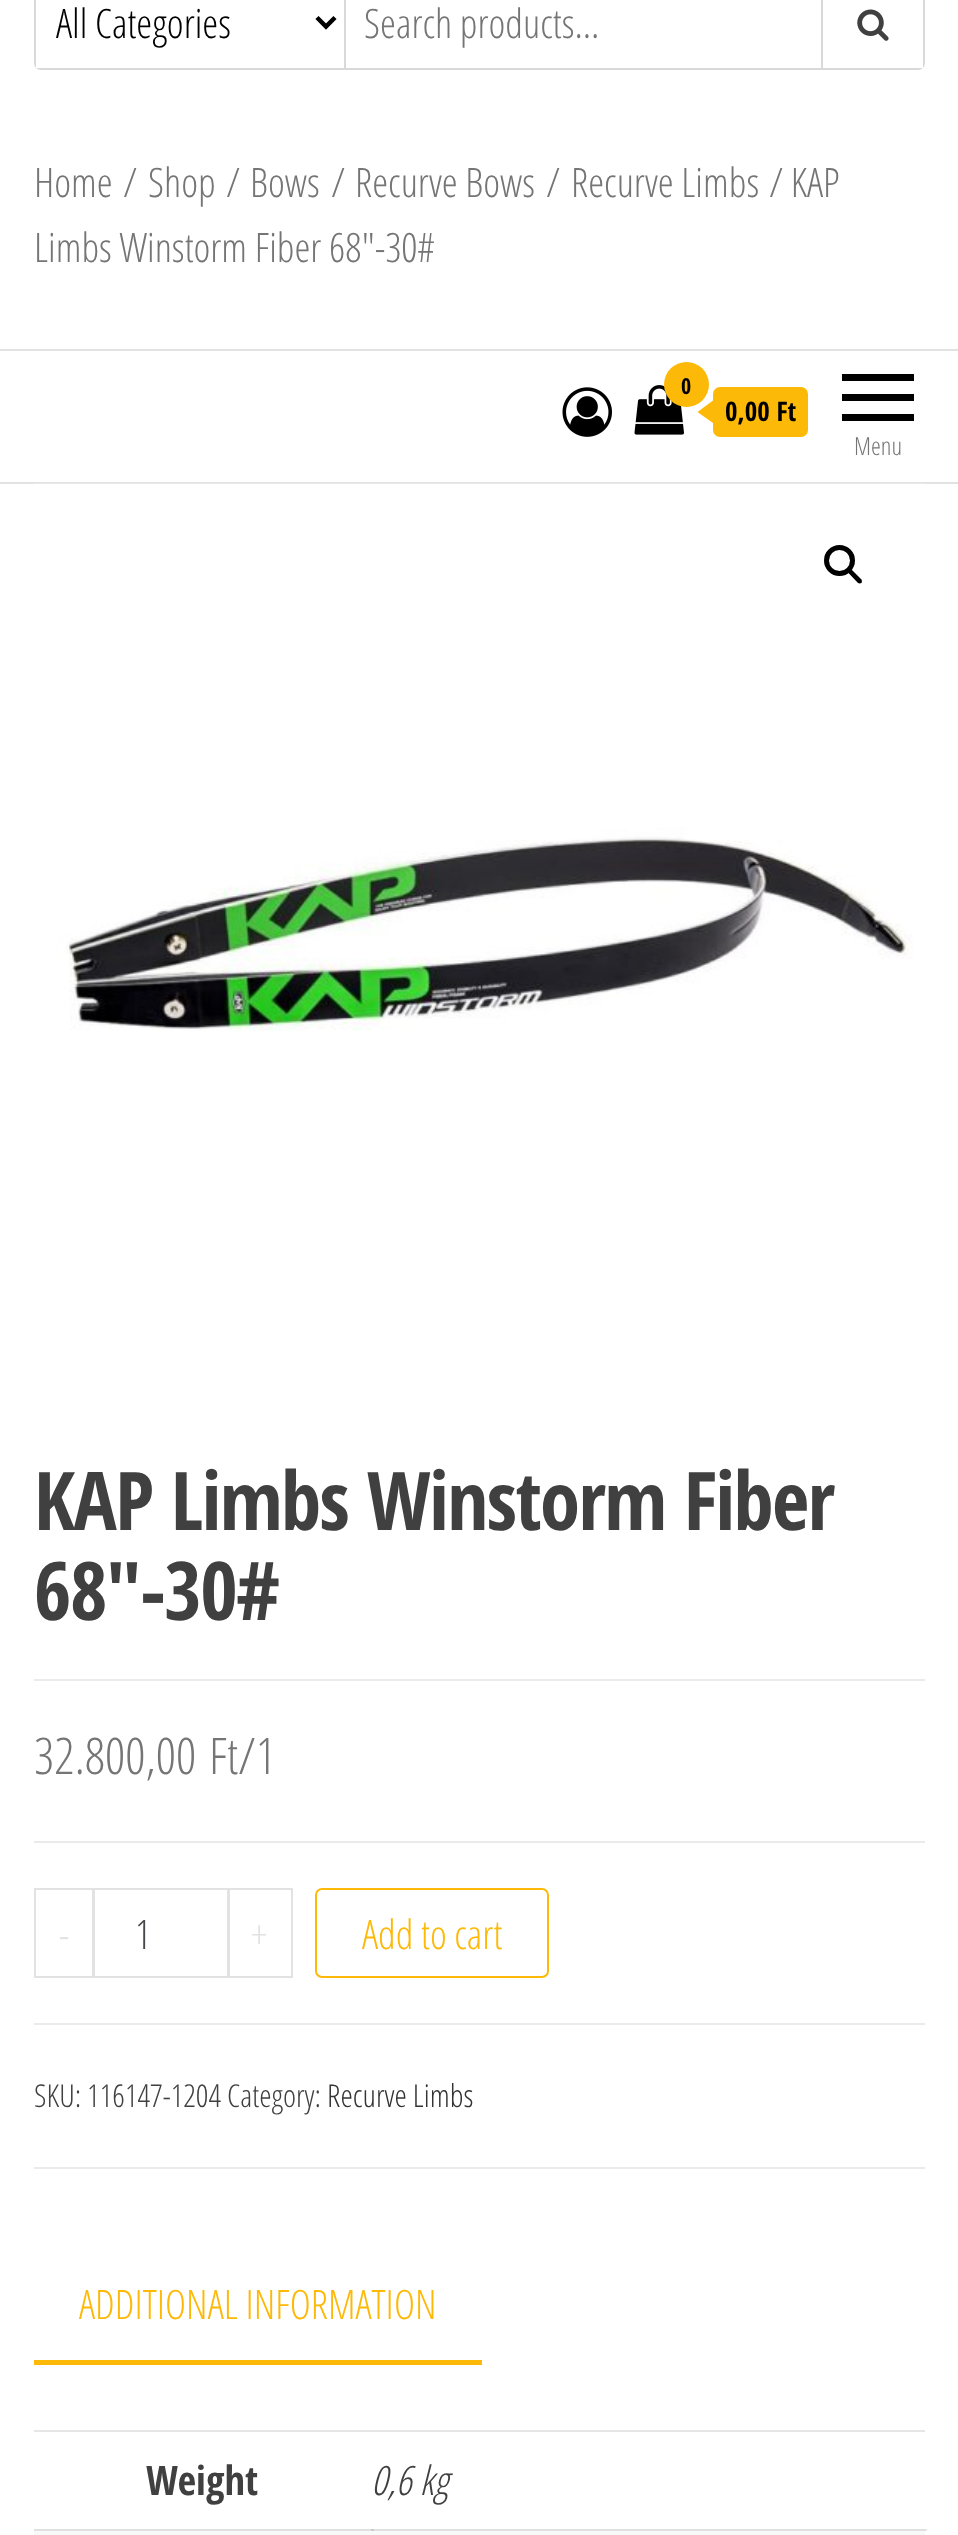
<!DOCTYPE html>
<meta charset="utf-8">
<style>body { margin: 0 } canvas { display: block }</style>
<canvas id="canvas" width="958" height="2535"></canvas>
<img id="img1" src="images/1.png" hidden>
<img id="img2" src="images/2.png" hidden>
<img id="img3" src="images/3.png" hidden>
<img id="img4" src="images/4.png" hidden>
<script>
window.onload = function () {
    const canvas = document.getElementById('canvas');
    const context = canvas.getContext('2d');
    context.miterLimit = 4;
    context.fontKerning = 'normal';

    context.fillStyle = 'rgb(255, 255, 255)';
    context.fillRect(0, 0, 958, 2535);
    context.beginPath();
    context.roundRect(35, -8, 889, 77, 6);
    context.strokeStyle = 'rgb(217, 217, 217)';
    context.lineWidth = 2;
    context.stroke();
    context.fillRect(36, 64, 4, 4);
    context.fillStyle = 'rgb(217, 217, 217)';
    context.fillRect(344, 0, 2, 68);
    context.beginPath();
    context.moveTo(317, 17.5);
    context.lineTo(326, 26.5);
    context.lineTo(335, 17.5);
    context.strokeStyle = 'rgb(0, 0, 0)';
    context.lineWidth = 4.5;
    context.stroke();
    context.fillStyle = 'rgb(255, 255, 255)';
    context.fillRect(919, 64, 4, 4);
    context.fillStyle = 'rgb(217, 217, 217)';
    context.fillRect(821, 0, 2, 68);
    context.drawImage(document.getElementById('img1'), 857, 9, 32, 32);
    context.fillStyle = 'rgb(226, 226, 226)';
    context.fillRect(0, 349, 958, 2);
    context.fillRect(0, 482, 958, 2);
    context.drawImage(document.getElementById('img2'), 562, 387, 50, 50);
    context.drawImage(document.getElementById('img3'), 634, 385, 50, 50);
    context.fillStyle = 'rgb(253, 185, 7)';
    context.beginPath();
    context.arc(686.5, 384.5, 22.5, 0, 2 * Math.PI);
    context.fill();
    context.beginPath();
    context.roundRect(713, 387, 95, 50, 7);
    context.fill();
    context.beginPath();
    context.moveTo(713, 400.5);
    context.lineTo(713, 423);
    context.lineTo(697.5, 412);
    context.closePath();
    context.fill();
    context.fillStyle = 'rgb(0, 0, 0)';
    context.fillRect(842, 374, 72, 7);
    context.fillRect(842, 394, 72, 7);
    context.fillRect(842, 414, 72, 7);
    context.fillStyle = 'rgb(230, 230, 230)';
    context.fillRect(925, 2529, 2, 2);
    context.drawImage(document.getElementById('img4'), 34, 483, 891, 548);
    context.beginPath();
    context.arc(839.5, 560.5, 13, 0, 2 * Math.PI);
    context.lineWidth = 5;
    context.stroke();
    context.fillStyle = 'rgb(0, 0, 0)';
    context.beginPath();
    context.moveTo(848.5, 570);
    context.bezierCurveTo(849.5, 569, 851, 569, 852, 570);
    context.lineTo(861.5, 579.5);
    context.bezierCurveTo(862, 580.5, 862, 582, 861.5, 583);
    context.bezierCurveTo(860.5, 583.5, 859, 583.5, 858, 583);
    context.lineTo(848.5, 573);
    context.bezierCurveTo(848, 572.5, 848, 571, 848.5, 570);
    context.closePath();
    context.fill();
    context.fillStyle = 'rgb(234, 234, 234)';
    context.fillRect(34, 1679, 891, 2);
    context.fillRect(34, 1841, 891, 2);
    context.fillRect(34, 2023, 891, 2);
    context.strokeStyle = 'rgb(226, 226, 226)';
    context.lineWidth = 2;
    context.strokeRect(93, 1889, 136, 88);
    context.strokeRect(35, 1889, 59, 88);
    context.strokeRect(228, 1889, 64, 88);
    context.beginPath();
    context.roundRect(316, 1889, 232, 88, 6);
    context.strokeStyle = 'rgb(253, 185, 7)';
    context.stroke();
    context.fillRect(34, 2167, 891, 2);
    context.fillStyle = 'rgb(253, 185, 7)';
    context.fillRect(34, 2360, 448, 5);
    context.fillStyle = 'rgb(230, 230, 230)';
    context.fillRect(34, 2430, 891, 2);
    context.fillStyle = 'rgb(249, 249, 249)';
    context.fillRect(34, 2531, 891, 4);
    context.fillStyle = 'rgb(224, 224, 224)';
    context.fillRect(34, 2529, 891, 2);
    context.fillStyle = 'rgb(202, 202, 202)';
    context.fillRect(371, 2529, 3, 2);
    context.font = '300 40.5px Open Sans Condensed';
    context.fillStyle = 'rgb(0, 0, 0)';
    context.fillText('All Categories', 56, 38);
    context.fillStyle = 'rgb(117, 117, 117)';
    context.fillText('Search products...', 364, 38);
    context.fillText('Home', 34, 197);
    context.fillText('/', 123, 197);
    context.fillText('Shop', 148, 197);
    context.fillText('/', 226, 197);
    context.fillText('Bows', 250, 197);
    context.fillText('/', 331, 197);
    context.fillText('Recurve Bows', 355, 197);
    context.fillText('/', 546, 197);
    context.fillText('Recurve Limbs', 571, 197);
    context.fillText('/ KAP', 769, 197);
    context.fillText('Limbs Winstorm Fiber 68″-30#', 34, 262);
    context.font = 'bold 22px Open Sans Condensed';
    context.fillStyle = 'rgb(0, 0, 0)';
    context.fillText('0', 681, 394);
    context.font = 'bold 27px Open Sans Condensed';
    context.fillText('0,00 Ft', 725, 421);
    context.font = '300 25px Open Sans Condensed';
    context.fillStyle = 'rgb(117, 117, 117)';
    context.fillText('Menu', 854, 455);
    context.letterSpacing = '-1.6px';
    context.font = 'bold 81px Open Sans Condensed';
    context.fillStyle = 'rgb(64, 64, 64)';
    context.fillText('KAP Limbs Winstorm Fiber', 34, 1530);
    context.fillText('68″-30#', 34, 1620);
    context.letterSpacing = '0px';
    context.font = '300 50.5px Open Sans Condensed';
    context.fillStyle = 'rgb(117, 117, 117)';
    context.fillText('32.800,00', 34, 1774);
    context.fillText('Ft/1', 209, 1774);
    context.font = '300 40.5px Open Sans Condensed';
    context.fillStyle = 'rgb(226, 226, 226)';
    context.fillText('-', 59, 1949);
    context.fillStyle = 'rgb(70, 74, 76)';
    context.fillText('1', 135, 1949);
    context.fillStyle = 'rgb(226, 226, 226)';
    context.fillText('+', 251, 1949);
    context.fillStyle = 'rgb(253, 185, 7)';
    context.fillText('Add to cart', 362, 1949);
    context.font = '300 31.5px Open Sans Condensed';
    context.fillStyle = 'rgb(64, 64, 64)';
    context.fillText('SKU: 116147-1204 Category:', 34, 2107);
    context.fillStyle = 'rgb(51, 51, 51)';
    context.fillText('Recurve Limbs', 327, 2107);
    context.font = '300 40.5px Open Sans Condensed';
    context.fillStyle = 'rgb(253, 185, 7)';
    context.fillText('ADDITIONAL INFORMATION', 79, 2319);
    context.font = 'bold 40.5px Open Sans Condensed';
    context.fillStyle = 'rgb(64, 64, 64)';
    context.fillText('Weight', 146, 2495);
    context.font = 'italic 300 40.5px Open Sans Condensed';
    context.fillText('0,6 kg', 371, 2495);
};
</script>
